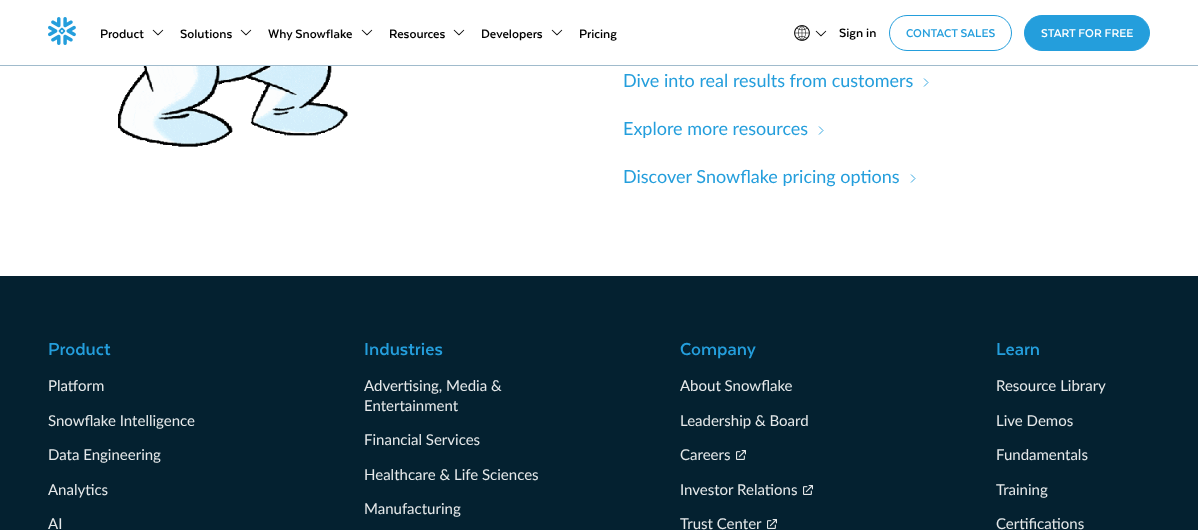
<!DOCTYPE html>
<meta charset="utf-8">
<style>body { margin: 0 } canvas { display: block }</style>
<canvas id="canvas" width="1198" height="530"></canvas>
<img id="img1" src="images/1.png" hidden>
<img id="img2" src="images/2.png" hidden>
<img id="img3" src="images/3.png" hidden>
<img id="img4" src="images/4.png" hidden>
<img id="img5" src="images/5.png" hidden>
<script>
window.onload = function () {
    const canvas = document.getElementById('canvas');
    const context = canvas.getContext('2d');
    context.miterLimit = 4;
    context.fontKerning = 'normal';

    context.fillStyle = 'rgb(255, 255, 255)';
    context.fillRect(0, 0, 1198, 530);
    context.fillStyle = 'rgb(160, 187, 204)';
    context.fillRect(0, 65, 1198, 1);
    context.drawImage(document.getElementById('img1'), 48, 17, 28, 28);
    context.drawImage(document.getElementById('img2'), 152, 29, 12, 7);
    context.drawImage(document.getElementById('img2'), 240, 29, 12, 7);
    context.drawImage(document.getElementById('img2'), 361, 29, 12, 7);
    context.drawImage(document.getElementById('img2'), 453, 29, 12, 7);
    context.drawImage(document.getElementById('img2'), 551, 29, 12, 7);
    context.drawImage(document.getElementById('img3'), 794, 25, 16, 16);
    context.drawImage(document.getElementById('img2'), 815, 30, 12, 7);
    context.beginPath();
    context.roundRect(889.5, 15.5, 122, 35, 17.5);
    context.strokeStyle = 'rgb(36, 158, 220)';
    context.stroke();
    context.fillStyle = 'rgb(36, 158, 220)';
    context.beginPath();
    context.roundRect(1024.5, 15.5, 125, 35, 17.5);
    context.fill();
    context.stroke();
    context.drawImage(document.getElementById('img4'), 118, 66, 230, 81);
    context.beginPath();
    context.moveTo(924, 86.5);
    context.lineTo(928, 82.5);
    context.lineTo(924, 78.5);
    context.lineWidth = 0.9;
    context.stroke();
    context.beginPath();
    context.moveTo(819, 134.5);
    context.lineTo(823, 130.5);
    context.lineTo(819, 126.5);
    context.stroke();
    context.beginPath();
    context.moveTo(911, 182.5);
    context.lineTo(915, 178.5);
    context.lineTo(911, 174.5);
    context.stroke();
    context.fillStyle = 'rgb(4, 33, 48)';
    context.fillRect(0, 276, 1198, 254);
    context.drawImage(document.getElementById('img5'), 736, 450, 10, 10);
    context.drawImage(document.getElementById('img5'), 803, 485, 10, 10);
    context.drawImage(document.getElementById('img5'), 767, 519, 10, 10);
    context.font = 'bold 14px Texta';
    context.fillStyle = 'rgb(0, 0, 0)';
    context.fillText('Product', 100, 38);
    context.fillText('Solutions', 180, 38);
    context.fillText('Why Snowflake', 268, 38);
    context.fillText('Resources', 389, 38);
    context.fillText('Developers', 481, 38);
    context.fillText('Pricing', 579, 38);
    context.fillText('Sign in', 839, 37);
    context.font = 'bold 13px Texta';
    context.fillStyle = 'rgb(36, 158, 220)';
    context.fillText('CONTACT SALES', 906, 37);
    context.fillStyle = 'rgb(255, 255, 255)';
    context.fillText('START FOR FREE', 1041, 37);
    context.font = '18px Lato';
    context.fillStyle = 'rgb(36, 158, 220)';
    context.fillText('Dive into real results from customers', 623, 87);
    context.fillText('Explore more resources', 623, 135);
    context.fillText('Discover Snowflake pricing options', 623, 183);
    context.font = 'bold 20px Texta';
    context.fillText('Product', 48, 355);
    context.font = '15px Lato';
    context.fillStyle = 'rgb(230, 233, 234)';
    context.fillText('Platform', 48, 391);
    context.fillText('Snowflake Intelligence', 48, 426);
    context.fillText('Data Engineering', 48, 460);
    context.fillText('Analytics', 48, 495);
    context.fillText('AI', 48, 529);
    context.font = 'bold 20px Texta';
    context.fillStyle = 'rgb(36, 158, 220)';
    context.fillText('Industries', 364, 355);
    context.font = '15px Lato';
    context.fillStyle = 'rgb(230, 233, 234)';
    context.fillText('Advertising, Media &', 364, 391);
    context.fillText('Entertainment', 364, 411);
    context.fillText('Financial Services', 364, 445);
    context.fillText('Healthcare & Life Sciences', 364, 480);
    context.fillText('Manufacturing', 364, 514);
    context.font = 'bold 20px Texta';
    context.fillStyle = 'rgb(36, 158, 220)';
    context.fillText('Company', 680, 355);
    context.font = '15px Lato';
    context.fillStyle = 'rgb(230, 233, 234)';
    context.fillText('About Snowflake', 680, 391);
    context.fillText('Leadership & Board', 680, 426);
    context.fillText('Careers', 680, 460);
    context.fillText('Investor Relations', 680, 495);
    context.fillText('Trust Center', 680, 529);
    context.font = 'bold 20px Texta';
    context.fillStyle = 'rgb(36, 158, 220)';
    context.fillText('Learn', 996, 355);
    context.font = '15px Lato';
    context.fillStyle = 'rgb(230, 233, 234)';
    context.fillText('Resource Library', 996, 391);
    context.fillText('Live Demos', 996, 426);
    context.fillText('Fundamentals', 996, 460);
    context.fillText('Training', 996, 495);
    context.fillText('Certifications', 996, 529);
};
</script>
